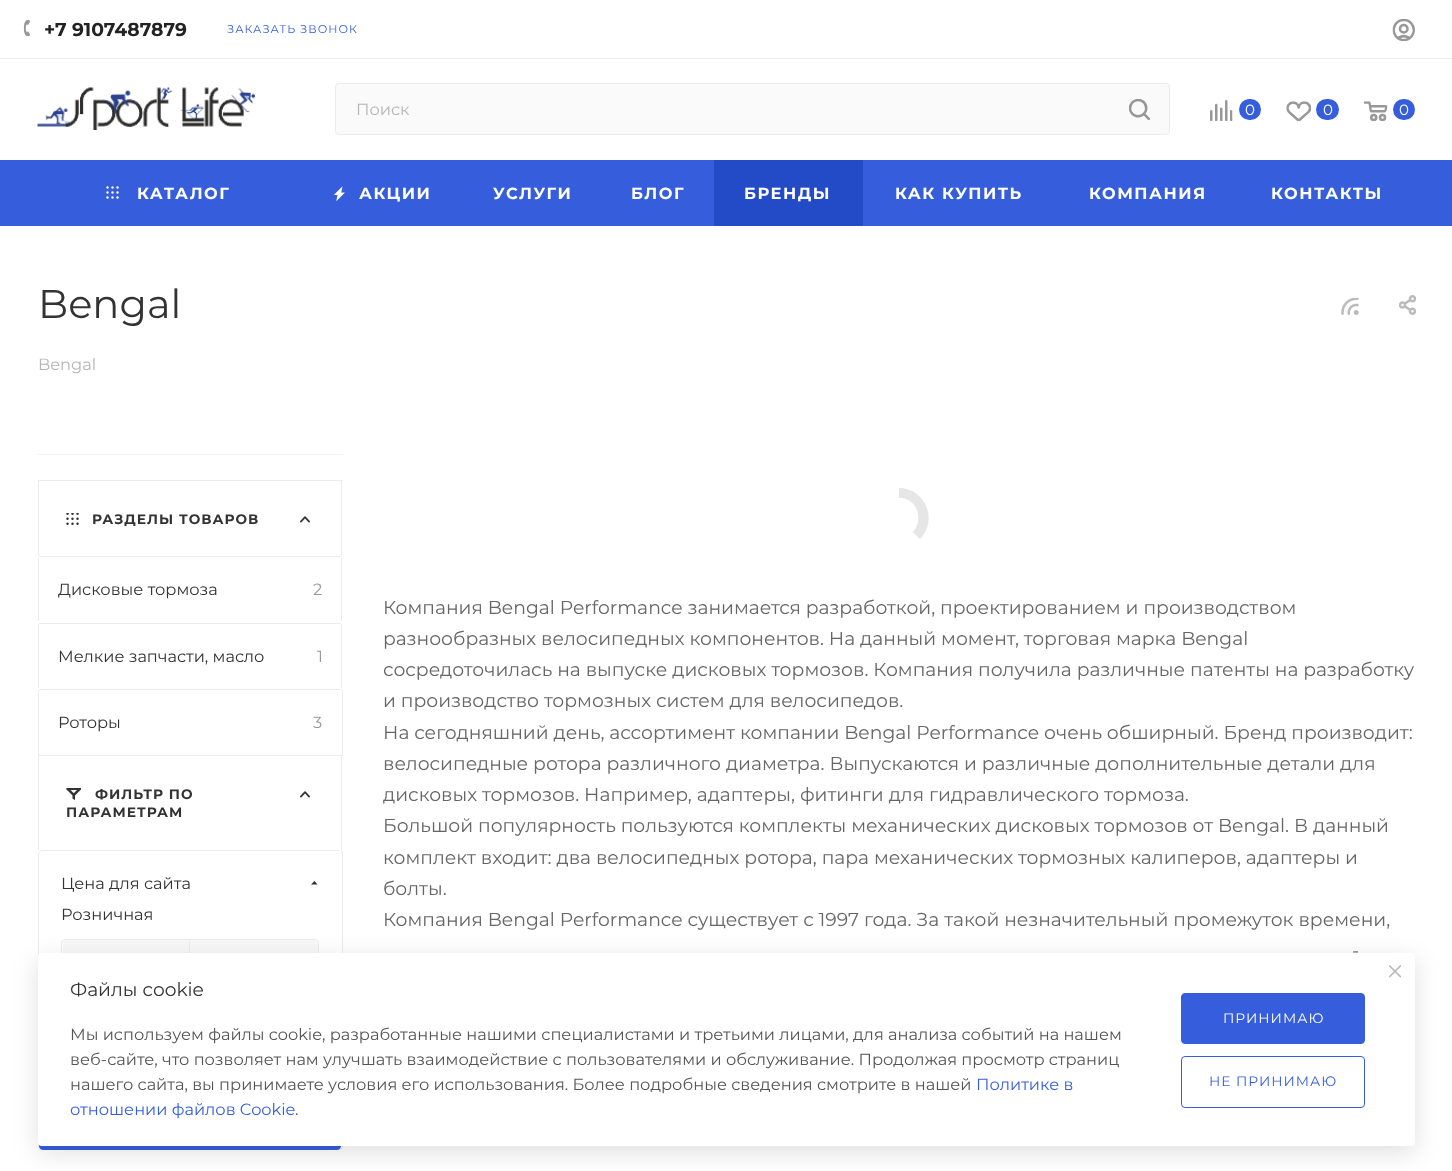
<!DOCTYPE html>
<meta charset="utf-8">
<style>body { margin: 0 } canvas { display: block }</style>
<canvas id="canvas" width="1452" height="1171"></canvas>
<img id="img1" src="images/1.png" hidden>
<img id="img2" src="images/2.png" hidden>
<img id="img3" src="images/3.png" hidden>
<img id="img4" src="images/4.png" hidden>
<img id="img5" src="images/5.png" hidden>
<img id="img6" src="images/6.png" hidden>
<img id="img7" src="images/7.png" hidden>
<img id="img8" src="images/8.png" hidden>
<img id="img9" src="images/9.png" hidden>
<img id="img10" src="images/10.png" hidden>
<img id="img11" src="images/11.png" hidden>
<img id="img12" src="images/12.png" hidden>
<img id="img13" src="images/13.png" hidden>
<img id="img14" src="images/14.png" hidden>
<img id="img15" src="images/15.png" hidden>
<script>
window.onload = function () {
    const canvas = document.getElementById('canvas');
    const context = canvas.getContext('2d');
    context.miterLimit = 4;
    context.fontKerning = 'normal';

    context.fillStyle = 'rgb(255, 255, 255)';
    context.fillRect(0, 0, 1452, 1171);
    context.fillStyle = 'rgb(236, 236, 236)';
    context.fillRect(0, 58, 1452, 1);
    context.drawImage(document.getElementById('img1'), 23, 20, 7, 17);
    context.drawImage(document.getElementById('img2'), 1392, 18, 23, 24);
    context.drawImage(document.getElementById('img3'), 37, 87, 218, 43);
    context.fillStyle = 'rgb(250, 250, 250)';
    context.beginPath();
    context.roundRect(335.5, 83.5, 834, 51, 3.5);
    context.fill();
    context.strokeStyle = 'rgb(236, 236, 236)';
    context.stroke();
    context.drawImage(document.getElementById('img4'), 1129, 99, 21, 21);
    context.drawImage(document.getElementById('img5'), 1210, 100, 23, 21);
    context.fillStyle = 'rgb(54, 94, 220)';
    context.beginPath();
    context.roundRect(1239, 99, 22, 21, 10.5);
    context.fill();
    context.drawImage(document.getElementById('img6'), 1286, 101, 26, 21);
    context.beginPath();
    context.roundRect(1316, 99, 23, 21, 10.5);
    context.fill();
    context.drawImage(document.getElementById('img7'), 1363, 101, 25, 21);
    context.beginPath();
    context.roundRect(1393, 99, 22, 21, 10.5);
    context.fill();
    context.fillRect(0, 160, 1452, 66);
    context.drawImage(document.getElementById('img8'), 106, 186, 13, 13);
    context.drawImage(document.getElementById('img9'), 334, 186, 11, 15);
    context.fillStyle = 'rgb(35, 74, 199)';
    context.fillRect(714, 160, 149, 66);
    context.drawImage(document.getElementById('img10'), 1341, 298, 18, 17);
    context.drawImage(document.getElementById('img11'), 1399, 295, 17, 20);
    context.fillStyle = 'rgb(242, 242, 242)';
    context.fillRect(38, 454, 305, 1);
    context.fillStyle = 'rgb(236, 236, 236)';
    context.fillRect(38, 480, 305, 1);
    context.fillRect(341, 480, 1, 76);
    context.fillRect(38, 480, 1, 76);
    context.drawImage(document.getElementById('img12'), 66, 513, 13, 12);
    context.drawImage(document.getElementById('img13'), 300, 516, 10, 7);
    context.fillRect(39, 556, 302, 1);
    context.fillRect(341, 558, 1, 63);
    context.fillRect(38, 558, 1, 63);
    context.fillRect(39, 623, 302, 1);
    context.fillRect(341, 624, 1, 64);
    context.fillRect(38, 624, 1, 64);
    context.beginPath();
    context.roundRect(38.5, 689.5, 304, 66, 2);
    context.stroke();
    context.fillRect(38, 755, 305, 1);
    context.fillRect(341, 755, 1, 95);
    context.fillRect(38, 755, 1, 95);
    context.drawImage(document.getElementById('img14'), 66, 788, 15, 12);
    context.drawImage(document.getElementById('img13'), 300, 791, 10, 7);
    context.beginPath();
    context.roundRect(38.5, 850.5, 304, 299, 3.5);
    context.stroke();
    context.fillStyle = 'rgb(51, 51, 51)';
    context.beginPath();
    context.moveTo(317.5, 884.5);
    context.lineTo(311, 884.5);
    context.lineTo(314.5, 881);
    context.closePath();
    context.fill('evenodd');
    context.beginPath();
    context.roundRect(61.5, 939.5, 257, 53, 3.5);
    context.stroke();
    context.fillStyle = 'rgb(248, 248, 248)';
    context.fillRect(63, 940, 126, 13);
    context.fillStyle = 'rgb(236, 236, 236)';
    context.fillRect(189, 940, 1, 13);
    context.fillStyle = 'rgb(248, 248, 248)';
    context.fillRect(190, 940, 128, 13);
    context.fillStyle = 'rgb(250, 250, 250)';
    context.fillRect(39, 1146, 302, 3);
    context.fillStyle = 'rgb(54, 94, 220)';
    context.beginPath();
    context.roundRect(39.5, 1081.5, 301, 68, [0, 0, 3.5, 3.5]);
    context.fill();
    context.strokeStyle = 'rgb(54, 94, 220)';
    context.stroke();
    context.fillStyle = 'rgb(230, 230, 230)';
    context.beginPath();
    context.moveTo(899, 488);
    context.bezierCurveTo(925, 488, 939, 520, 920, 539);
    context.lineTo(913, 532);
    context.bezierCurveTo(925, 519, 916, 497, 899, 498);
    context.closePath();
    context.fill();
    context.fillStyle = 'rgba(0, 0, 0, 0.12)';
    context.filter = 'blur(12.5px)';
    context.beginPath();
    context.roundRect(38, 959, 1377, 194, 4);
    context.fill();
    context.filter = 'none';
    context.fillStyle = 'rgb(255, 255, 255)';
    context.beginPath();
    context.roundRect(38, 953, 1377, 193, 4);
    context.fill();
    context.drawImage(document.getElementById('img15'), 1389, 965, 12, 13);
    context.fillStyle = 'rgb(54, 94, 220)';
    context.beginPath();
    context.roundRect(1181.5, 993.5, 183, 50, 3.5);
    context.fill();
    context.stroke();
    context.beginPath();
    context.roundRect(1181.5, 1056.5, 183, 51, 3.5);
    context.stroke();
    context.font = 'bold 18.75px Montserrat';
    context.fillStyle = 'rgb(34, 34, 34)';
    context.fillText('+7 9107487879', 44, 36);
    context.letterSpacing = '1px';
    context.font = '11.25px Montserrat';
    context.fillStyle = 'rgb(54, 94, 220)';
    context.fillText('ЗАКАЗАТЬ ЗВОНОК', 227, 33);
    context.letterSpacing = '0px';
    context.font = '16.25px Montserrat';
    context.fillStyle = 'rgb(182, 181, 181)';
    context.fillText('Поиск', 356, 115);
    context.font = '15px Montserrat';
    context.fillStyle = 'rgb(255, 255, 255)';
    context.fillText('0', 1245, 115);
    context.fillText('0', 1323, 115);
    context.fillText('0', 1399, 115);
    context.letterSpacing = '1.5px';
    context.font = 'bold 16.25px Montserrat';
    context.fillText('КАТАЛОГ', 137, 199);
    context.fillText('АКЦИИ', 359, 199);
    context.fillText('УСЛУГИ', 493, 199);
    context.fillText('БЛОГ', 631, 199);
    context.fillText('БРЕНДЫ', 744, 199);
    context.fillText('КАК КУПИТЬ', 895, 199);
    context.fillText('КОМПАНИЯ', 1089, 199);
    context.fillText('КОНТАКТЫ', 1271, 199);
    context.letterSpacing = '0px';
    context.font = '40px Montserrat';
    context.fillStyle = 'rgb(51, 51, 51)';
    context.fillText('Bengal', 38, 318);
    context.font = '16.25px Montserrat';
    context.fillStyle = 'rgb(182, 181, 181)';
    context.fillText('Bengal', 38, 370);
    context.letterSpacing = '1px';
    context.font = 'bold 13.75px Montserrat';
    context.fillStyle = 'rgb(51, 51, 51)';
    context.fillText('РАЗДЕЛЫ ТОВАРОВ', 92, 524);
    context.letterSpacing = '0px';
    context.font = '16.25px Montserrat';
    context.fillText('Дисковые тормоза', 58, 595);
    context.fillStyle = 'rgb(153, 153, 153)';
    context.fillText('2', 313, 595);
    context.fillStyle = 'rgb(51, 51, 51)';
    context.fillText('Мелкие запчасти, масло', 58, 662);
    context.fillStyle = 'rgb(153, 153, 153)';
    context.fillText('1', 317, 662);
    context.fillStyle = 'rgb(51, 51, 51)';
    context.fillText('Роторы', 58, 728);
    context.fillStyle = 'rgb(153, 153, 153)';
    context.fillText('3', 313, 728);
    context.letterSpacing = '1px';
    context.font = 'bold 13.75px Montserrat';
    context.fillStyle = 'rgb(51, 51, 51)';
    context.fillText('ФИЛЬТР ПО', 95, 799);
    context.fillText('ПАРАМЕТРАМ', 66, 817);
    context.letterSpacing = '0px';
    context.font = '16.25px Montserrat';
    context.fillText('Цена для сайта', 61, 889);
    context.fillText('Розничная', 61, 920);
    context.font = '18.75px Montserrat';
    context.fillStyle = 'rgb(102, 102, 102)';
    context.fillText('Компания Bengal Performance занимается разработкой, проектированием и производством', 383, 614);
    context.fillText('разнообразных велосипедных компонентов. На данный момент, торговая марка Bengal', 383, 645);
    context.fillText('сосредоточилась на выпуске дисковых тормозов. Компания получила различные патенты на разработку', 383, 676);
    context.fillText('и производство тормозных систем для велосипедов.', 383, 707);
    context.fillText('На сегодняшний день, ассортимент компании Bengal Performance очень обширный. Бренд производит:', 383, 739);
    context.fillText('велосипедные ротора различного диаметра. Выпускаются и различные дополнительные детали для', 383, 770);
    context.fillText('дисковых тормозов. Например, адаптеры, фитинги для гидравлического тормоза.', 383, 801);
    context.fillText('Большой популярность пользуются комплекты механических дисковых тормозов от Bengal. В данный', 383, 832);
    context.fillText('комплект входит: два велосипедных ротора, пара механических тормозных калиперов, адаптеры и', 383, 864);
    context.fillText('болты.', 383, 895);
    context.fillText('Компания Bengal Performance существует с 1997 года. За такой незначительный промежуток времени,', 383, 926);
    context.fillText('-', 1352, 957);
    context.fillStyle = 'rgb(51, 51, 51)';
    context.fillText('Файлы cookie', 70, 996);
    context.font = '16.25px Montserrat';
    context.fillStyle = 'rgb(85, 85, 85)';
    context.fillText('Мы используем файлы cookie, разработанные нашими специалистами и третьими лицами, для анализа событий на нашем', 70, 1040);
    context.fillText('веб-сайте, что позволяет нам улучшать взаимодействие с пользователями и обслуживание. Продолжая просмотр страниц', 70, 1065);
    context.fillText('нашего сайта, вы принимаете условия его использования. Более подробные сведения смотрите в нашей', 70, 1090);
    context.fillStyle = 'rgb(54, 94, 220)';
    context.fillText('Политике в', 976, 1090);
    context.fillText('отношении файлов Cookie', 70, 1115);
    context.fillStyle = 'rgb(85, 85, 85)';
    context.fillText('.', 295, 1115);
    context.letterSpacing = '1px';
    context.font = '13.75px Montserrat';
    context.fillStyle = 'rgb(255, 255, 255)';
    context.fillText('ПРИНИМАЮ', 1223, 1023);
    context.fillStyle = 'rgb(54, 94, 220)';
    context.fillText('НЕ ПРИНИМАЮ', 1209, 1086);
};
</script>
